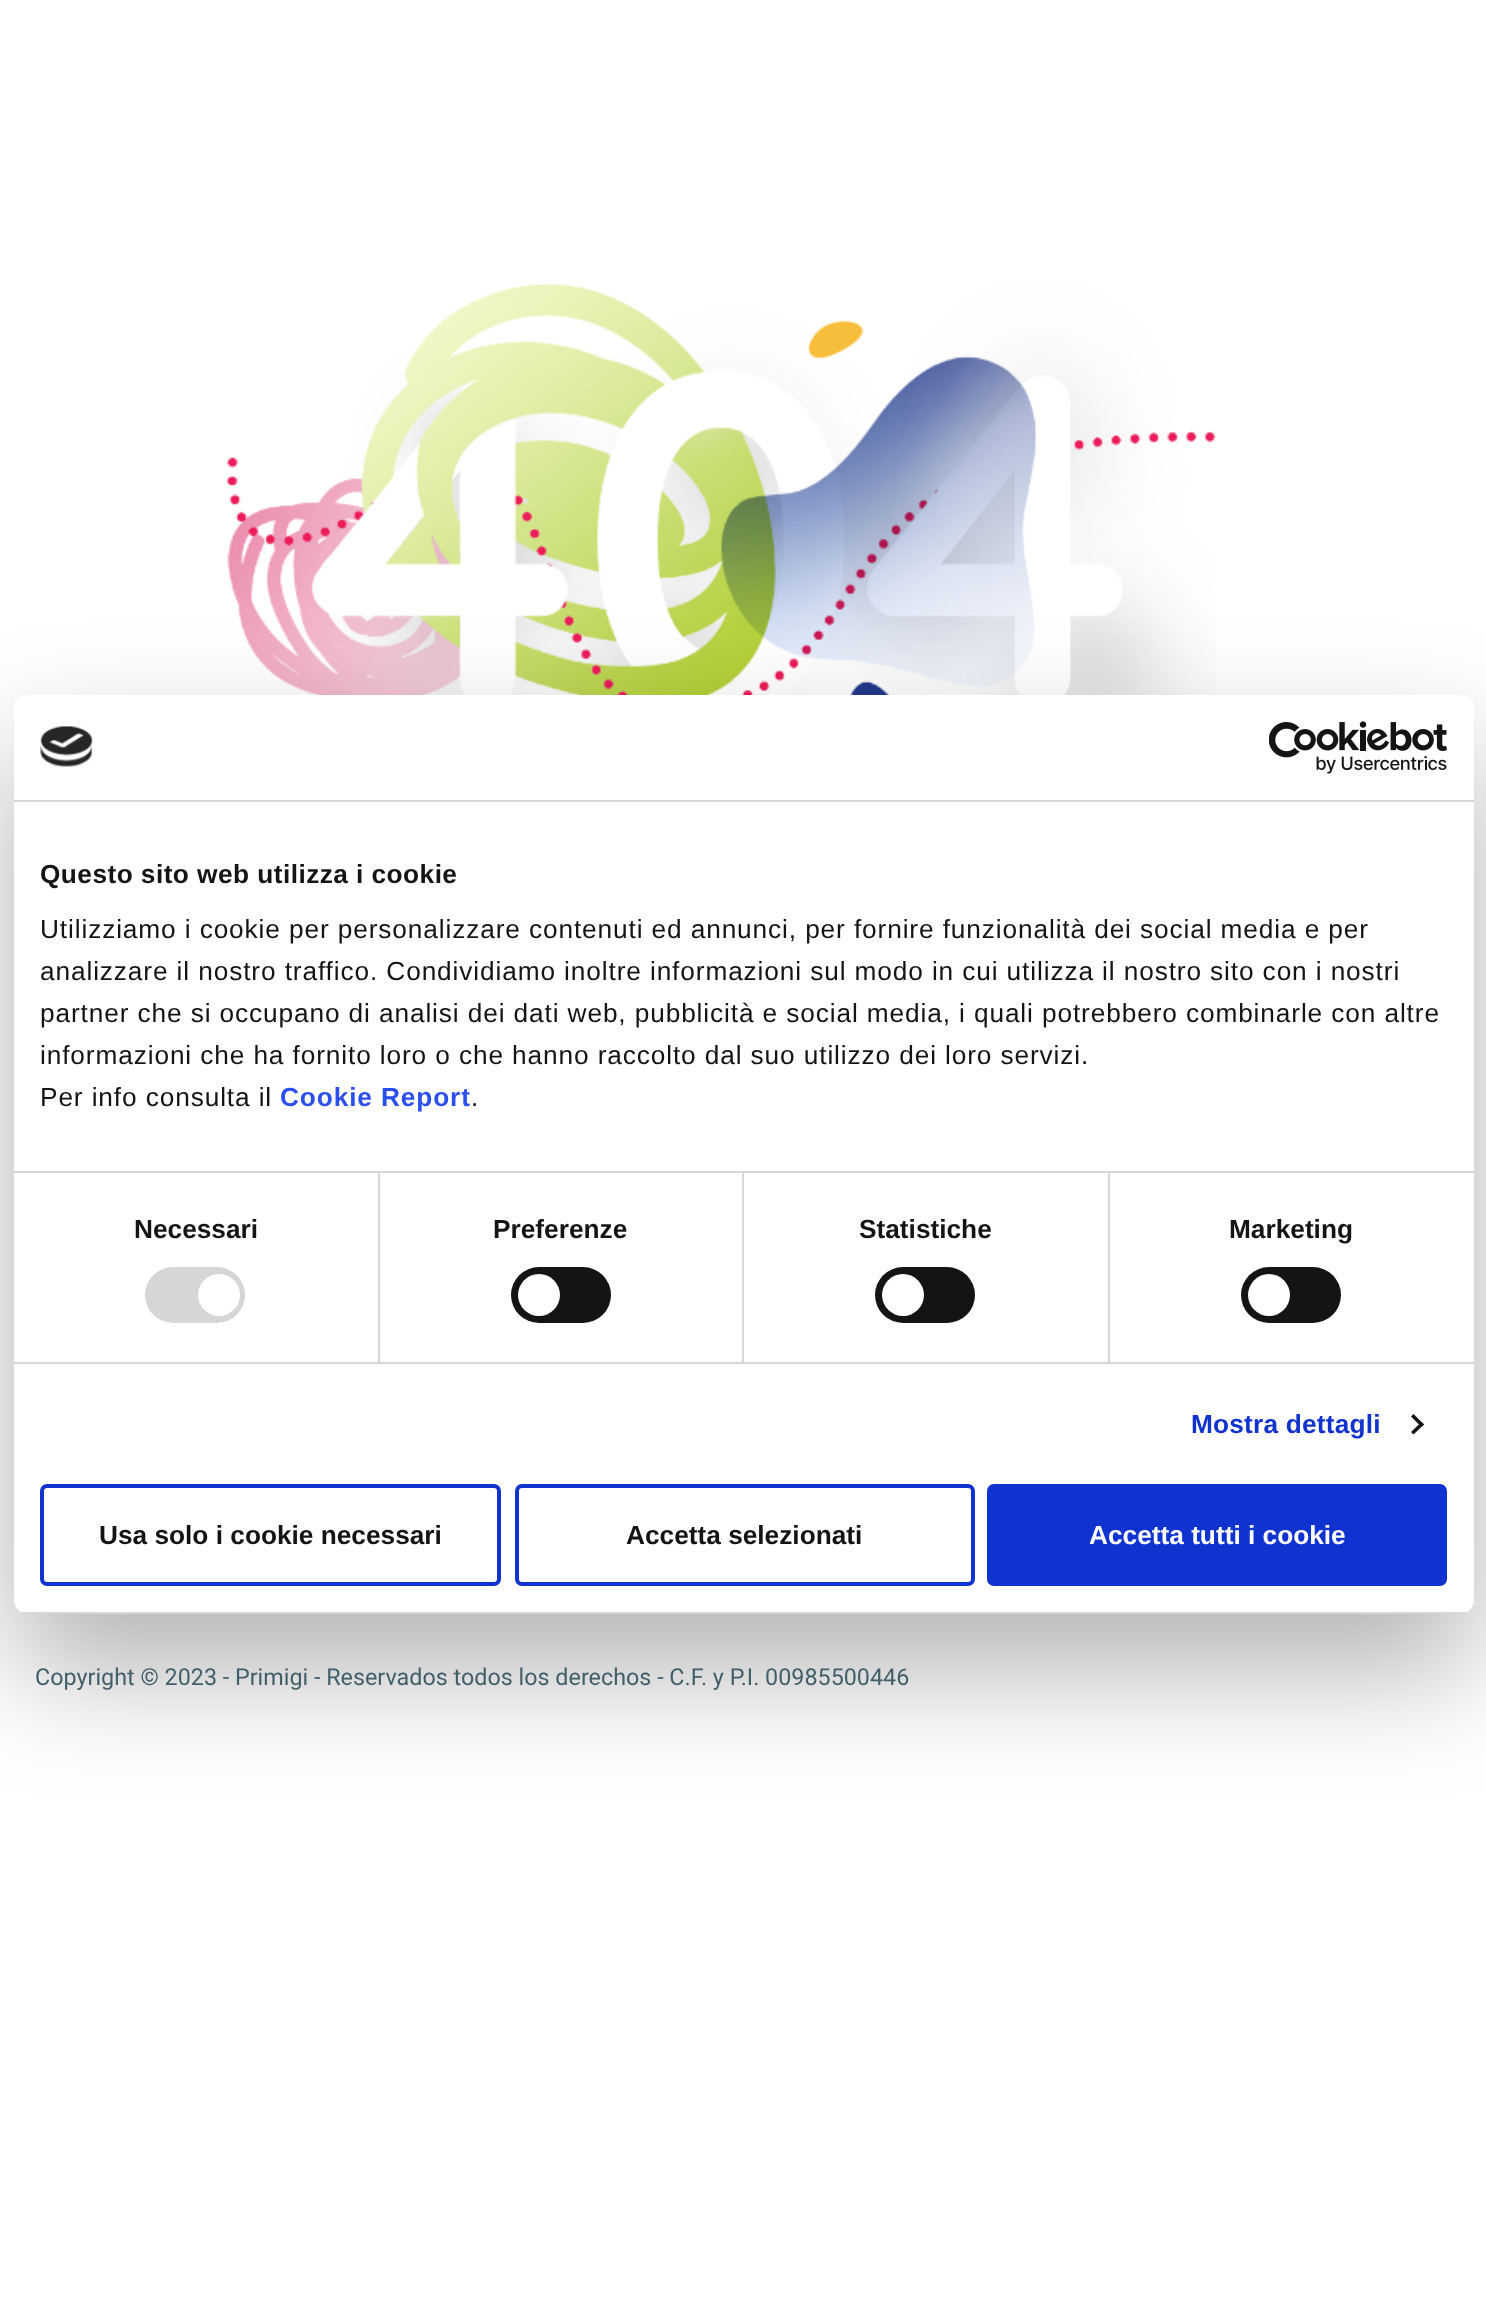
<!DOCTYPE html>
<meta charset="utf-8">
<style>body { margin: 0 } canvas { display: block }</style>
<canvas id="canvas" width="1486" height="2308"></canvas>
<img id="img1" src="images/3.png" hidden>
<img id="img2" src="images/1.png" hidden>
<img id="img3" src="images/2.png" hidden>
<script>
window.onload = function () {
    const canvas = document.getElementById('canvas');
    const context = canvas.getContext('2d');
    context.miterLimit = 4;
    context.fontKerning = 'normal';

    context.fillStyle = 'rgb(255, 255, 255)';
    context.fillRect(0, 0, 1486, 2308);
    context.drawImage(document.getElementById('img1'), 226, 284, 990, 411);
    context.fillStyle = 'rgba(0, 0, 0, 0.3)';
    context.filter = 'blur(59.5px)';
    context.beginPath();
    context.roundRect(14, 751, 1460, 919, 14);
    context.fill();
    context.filter = 'none';
    context.fillStyle = 'rgb(255, 255, 255)';
    context.beginPath();
    context.roundRect(14, 695, 1460, 919, 14);
    context.fill();
    context.fillStyle = 'rgb(214, 214, 214)';
    context.fillRect(14, 800, 1460, 2);
    context.drawImage(document.getElementById('img2'), 40, 726, 53, 41);
    context.drawImage(document.getElementById('img3'), 1269, 721, 178, 53);
    context.fillRect(14, 1171, 1460, 2);
    context.fillRect(14, 1362, 1460, 2);
    context.fillRect(378, 1173, 2, 189);
    context.beginPath();
    context.roundRect(145, 1267, 100, 56, 28);
    context.fill();
    context.fillStyle = 'rgb(255, 255, 255)';
    context.beginPath();
    context.arc(219, 1295, 21, 0, 2 * Math.PI);
    context.fill();
    context.fillStyle = 'rgb(214, 214, 214)';
    context.fillRect(742, 1173, 2, 189);
    context.fillStyle = 'rgb(20, 20, 20)';
    context.beginPath();
    context.roundRect(511, 1267, 100, 56, 28);
    context.fill();
    context.fillStyle = 'rgb(255, 255, 255)';
    context.beginPath();
    context.arc(539, 1295, 21, 0, 2 * Math.PI);
    context.fill();
    context.fillStyle = 'rgb(214, 214, 214)';
    context.fillRect(1108, 1173, 2, 189);
    context.fillStyle = 'rgb(20, 20, 20)';
    context.beginPath();
    context.roundRect(875, 1267, 100, 56, 28);
    context.fill();
    context.fillStyle = 'rgb(255, 255, 255)';
    context.beginPath();
    context.arc(903, 1295, 21, 0, 2 * Math.PI);
    context.fill();
    context.fillStyle = 'rgb(20, 20, 20)';
    context.beginPath();
    context.roundRect(1241, 1267, 100, 56, 28);
    context.fill();
    context.fillStyle = 'rgb(255, 255, 255)';
    context.beginPath();
    context.arc(1269, 1295, 21, 0, 2 * Math.PI);
    context.fill();
    context.fillStyle = 'rgb(20, 20, 20)';
    context.beginPath();
    context.moveTo(1413.5, 1414);
    context.lineTo(1424, 1424.5);
    context.lineTo(1421.5, 1427);
    context.lineTo(1411, 1416.5);
    context.closePath();
    context.fill();
    context.beginPath();
    context.moveTo(1421.5, 1422);
    context.lineTo(1424, 1424.5);
    context.lineTo(1413.5, 1434.5);
    context.lineTo(1411, 1432);
    context.closePath();
    context.fill();
    context.save();
    context.beginPath();
    context.roundRect(14, 695, 1460, 919, 14);
    context.clip();
    context.fillStyle = 'rgb(214, 214, 214)';
    context.fillRect(14, 1612, 1460, 2);
    context.restore();
    context.beginPath();
    context.roundRect(42, 1486, 457, 98, 5);
    context.strokeStyle = 'rgb(16, 50, 207)';
    context.lineWidth = 4;
    context.stroke();
    context.beginPath();
    context.roundRect(517, 1486, 456, 98, 5);
    context.stroke();
    context.fillStyle = 'rgb(16, 50, 207)';
    context.beginPath();
    context.roundRect(989, 1486, 456, 98, 5);
    context.fill();
    context.stroke();
    context.letterSpacing = '0.45px';
    context.font = 'bold 26.25px Liberation Sans';
    context.fillStyle = 'rgb(20, 20, 20)';
    context.fillText('Questo sito web utilizza i cookie', 40, 883);
    context.letterSpacing = '0.88px';
    context.font = '26.25px Liberation Sans';
    context.fillText('Utilizziamo i cookie per personalizzare contenuti ed annunci, per fornire funzionalità dei social media e per', 40, 938);
    context.fillText('analizzare il nostro traffico. Condividiamo inoltre informazioni sul modo in cui utilizza il nostro sito con i nostri', 40, 980);
    context.fillText('partner che si occupano di analisi dei dati web, pubblicità e social media, i quali potrebbero combinarle con altre', 40, 1022);
    context.fillText('informazioni che ha fornito loro o che hanno raccolto dal suo utilizzo dei loro servizi.', 40, 1064);
    context.fillText('Per info consulta il', 40, 1106);
    context.font = 'bold 26.25px Liberation Sans';
    context.fillStyle = 'rgb(42, 78, 239)';
    context.fillText('Cookie Report', 280, 1106);
    context.font = '26.25px Liberation Sans';
    context.fillStyle = 'rgb(20, 20, 20)';
    context.fillText('.', 471, 1106);
    context.letterSpacing = '0px';
    context.font = 'bold 26.25px Liberation Sans';
    context.fillText('Necessari', 134, 1238);
    context.fillText('Preferenze', 493, 1238);
    context.fillText('Statistiche', 859, 1238);
    context.fillText('Marketing', 1229, 1238);
    context.letterSpacing = '0.2px';
    context.fillStyle = 'rgb(16, 50, 207)';
    context.fillText('Mostra dettagli', 1191, 1433);
    context.letterSpacing = '0px';
    context.fillStyle = 'rgb(20, 20, 20)';
    context.fillText('Usa solo i cookie necessari', 99, 1544);
    context.fillText('Accetta selezionati', 626, 1544);
    context.fillStyle = 'rgb(255, 255, 255)';
    context.fillText('Accetta tutti i cookie', 1089, 1544);
    context.font = '23.35px Roboto';
    context.fillStyle = 'rgb(65, 95, 106)';
    context.fillText('Copyright © 2023 - Primigi - Reservados todos los derechos - C.F. y P.I. 00985500446', 35, 1685);
};
</script>
